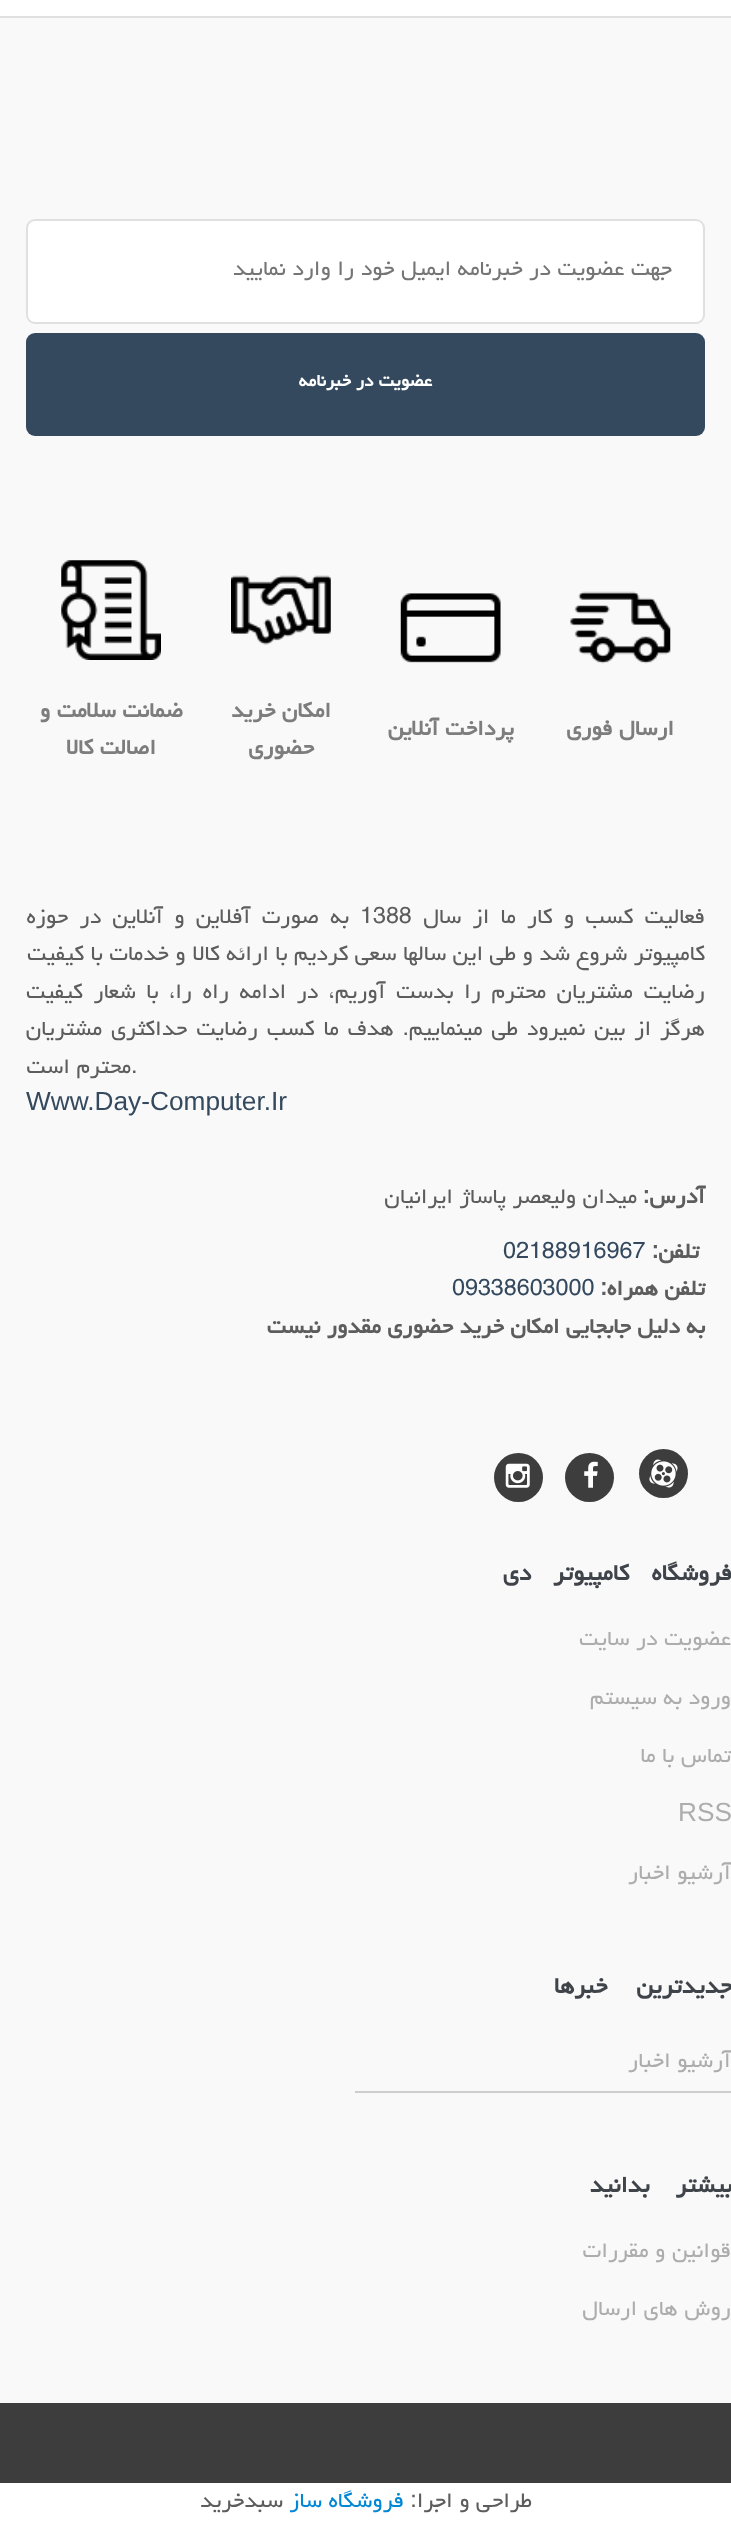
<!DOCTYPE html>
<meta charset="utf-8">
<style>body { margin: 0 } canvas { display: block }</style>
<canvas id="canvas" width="731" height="2521"></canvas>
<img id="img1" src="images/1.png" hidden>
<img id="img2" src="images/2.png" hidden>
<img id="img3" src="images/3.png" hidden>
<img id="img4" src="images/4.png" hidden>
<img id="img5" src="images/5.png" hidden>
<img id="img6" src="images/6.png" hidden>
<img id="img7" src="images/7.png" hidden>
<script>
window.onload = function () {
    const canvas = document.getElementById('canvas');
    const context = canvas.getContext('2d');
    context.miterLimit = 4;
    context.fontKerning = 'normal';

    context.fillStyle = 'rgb(255, 255, 255)';
    context.fillRect(0, 0, 731, 2521);
    context.fillStyle = 'rgb(249, 249, 249)';
    context.fillRect(0, 18, 731, 2385);
    context.fillStyle = 'rgb(224, 224, 224)';
    context.fillRect(0, 16, 731, 2);
    context.fillStyle = 'rgb(255, 255, 255)';
    context.beginPath();
    context.roundRect(27, 220, 677, 103, 8);
    context.fill();
    context.strokeStyle = 'rgb(224, 224, 224)';
    context.lineWidth = 2;
    context.stroke();
    context.fillStyle = 'rgb(52, 73, 94)';
    context.beginPath();
    context.roundRect(26, 333, 679, 103, 9);
    context.fill();
    context.drawImage(document.getElementById('img1'), 570, 591, 101, 73);
    context.drawImage(document.getElementById('img2'), 400, 593, 101, 70);
    context.drawImage(document.getElementById('img3'), 231, 575, 100, 70);
    context.drawImage(document.getElementById('img4'), 61, 560, 100, 100);
    context.fillStyle = 'rgb(61, 61, 61)';
    context.beginPath();
    context.arc(663.5, 1473.5, 24.5, 0, 2 * Math.PI);
    context.fill();
    context.drawImage(document.getElementById('img5'), 649, 1459, 29, 29);
    context.beginPath();
    context.arc(589.5, 1477.5, 24.5, 0, 2 * Math.PI);
    context.fill();
    context.drawImage(document.getElementById('img6'), 584, 1461, 14, 27);
    context.beginPath();
    context.arc(518.5, 1477.5, 24.5, 0, 2 * Math.PI);
    context.fill();
    context.drawImage(document.getElementById('img7'), 505, 1463, 25, 25);
    context.fillStyle = 'rgb(206, 206, 206)';
    context.fillRect(355, 2091, 376, 2);
    context.fillStyle = 'rgb(61, 61, 61)';
    context.fillRect(0, 2403, 731, 80);
    context.direction = 'rtl';
    context.font = '26.25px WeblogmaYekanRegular';
    context.fillStyle = 'rgb(117, 117, 117)';
    context.fillText('جهت عضویت در خبرنامه ایمیل خود را وارد نمایید', 672, 275);
    context.font = 'bold 21px WeblogmaYekanRegular';
    context.fillStyle = 'rgb(255, 255, 255)';
    context.fillText('عضویت در خبرنامه', 432, 386);
    context.font = 'bold 26.25px WeblogmaYekanRegular';
    context.fillStyle = 'rgb(125, 125, 125)';
    context.fillText('ارسال فوري', 674, 735);
    context.fillText('پرداخت آنلاين', 514, 735);
    context.fillText('امکان خريد', 331, 717);
    context.fillText('حضوري', 314, 754);
    context.fillText('ضمانت سلامت و', 183, 717);
    context.fillText('اصالت کالا', 156, 754);
    context.wordSpacing = '4.75px';
    context.font = '26.25px WeblogmaYekanRegular';
    context.fillStyle = 'rgb(93, 93, 93)';
    context.fillText('فعالیت کسب و کار ما از سال', 705, 923);
    context.wordSpacing = '0px';
    context.direction = 'ltr';
    context.fillText('1388', 360, 923);
    context.wordSpacing = '4.75px';
    context.direction = 'rtl';
    context.fillText('به صورت آفلاین و آنلاین در حوزه', 349, 923);
    context.wordSpacing = '0px';
    context.fillText('کامپیوتر شروع شد و طی این سالها سعی کردیم با ارائه کالا و خدمات با کیفیت', 705, 960);
    context.wordSpacing = '4.1px';
    context.fillText('رضایت مشتریان محترم را بدست آوریم، در ادامه راه را، با شعار کیفیت', 705, 998);
    context.wordSpacing = '2.4px';
    context.fillText('هرگز از بین نمیرود طی مینماییم. هدف ما کسب رضایت حداکثری مشتریان', 705, 1035);
    context.wordSpacing = '0px';
    context.direction = 'ltr';
    context.fillText('.', 131, 1073);
    context.direction = 'rtl';
    context.fillText('محترم است', 131, 1073);
    context.direction = 'ltr';
    context.font = '26.25px Liberation Sans';
    context.fillStyle = 'rgb(52, 73, 94)';
    context.fillText('Www.Day-Computer.Ir', 26, 1110);
    context.direction = 'rtl';
    context.font = 'bold 26.25px WeblogmaYekanRegular';
    context.fillStyle = 'rgb(93, 93, 93)';
    context.fillText('آدرس:', 705, 1203);
    context.font = '26.25px WeblogmaYekanRegular';
    context.fillText('میدان ولیعصر پاساژ ایرانیان', 637, 1203);
    context.font = 'bold 26.25px WeblogmaYekanRegular';
    context.fillText('تلفن:', 699, 1258);
    context.direction = 'ltr';
    context.font = '26.25px WeblogmaYekanRegular';
    context.fillStyle = 'rgb(52, 73, 94)';
    context.fillText('02188916967', 503, 1258);
    context.direction = 'rtl';
    context.font = 'bold 26.25px WeblogmaYekanRegular';
    context.fillStyle = 'rgb(93, 93, 93)';
    context.fillText('تلفن همراه:', 705, 1295);
    context.direction = 'ltr';
    context.font = '26.25px WeblogmaYekanRegular';
    context.fillStyle = 'rgb(52, 73, 94)';
    context.fillText('09338603000', 452, 1295);
    context.direction = 'rtl';
    context.font = 'bold 26.25px WeblogmaYekanRegular';
    context.fillStyle = 'rgb(93, 93, 93)';
    context.fillText('به دلیل جابجایی امکان خرید حضوری مقدور نیست', 705, 1333);
    context.letterSpacing = '-1.75px';
    context.wordSpacing = '17px';
    context.font = 'bold 28px WeblogmaYekanRegular';
    context.fillStyle = 'rgb(63, 68, 74)';
    context.fillText('فروشگاه کامپیوتر دی', 732, 1580);
    context.letterSpacing = '0px';
    context.wordSpacing = '0px';
    context.font = '26.25px WeblogmaYekanRegular';
    context.fillStyle = 'rgb(173, 173, 173)';
    context.fillText('عضویت در سایت', 731, 1645);
    context.fillText('ورود به سیستم', 731, 1704);
    context.fillText('تماس با ما', 731, 1762);
    context.direction = 'ltr';
    context.font = '26.25px Liberation Sans';
    context.fillText('RSS', 678, 1821);
    context.direction = 'rtl';
    context.font = '26.25px WeblogmaYekanRegular';
    context.fillText('آرشیو اخبار', 731, 1879);
    context.letterSpacing = '-1.75px';
    context.wordSpacing = '24px';
    context.font = 'bold 28px WeblogmaYekanRegular';
    context.fillStyle = 'rgb(63, 68, 74)';
    context.fillText('جدیدترین خبرها', 732, 1993);
    context.letterSpacing = '0px';
    context.wordSpacing = '0px';
    context.font = '26.25px WeblogmaYekanRegular';
    context.fillStyle = 'rgb(173, 173, 173)';
    context.fillText('آرشیو اخبار', 731, 2067);
    context.letterSpacing = '-1.75px';
    context.wordSpacing = '21px';
    context.font = 'bold 28px WeblogmaYekanRegular';
    context.fillStyle = 'rgb(63, 68, 74)';
    context.fillText('بیشتر بدانید', 732, 2192);
    context.letterSpacing = '0px';
    context.wordSpacing = '0px';
    context.font = '26.25px WeblogmaYekanRegular';
    context.fillStyle = 'rgb(173, 173, 173)';
    context.fillText('قوانین و مقررات', 731, 2257);
    context.fillText('روش های ارسال', 731, 2315);
    context.fillStyle = 'rgb(93, 93, 93)';
    context.fillText('طراحی و اجرا:', 532, 2507);
    context.fillStyle = 'rgb(0, 135, 213)';
    context.fillText('فروشگاه ساز', 404, 2507);
    context.fillStyle = 'rgb(93, 93, 93)';
    context.fillText('سبدخرید', 283, 2507);
};
</script>
